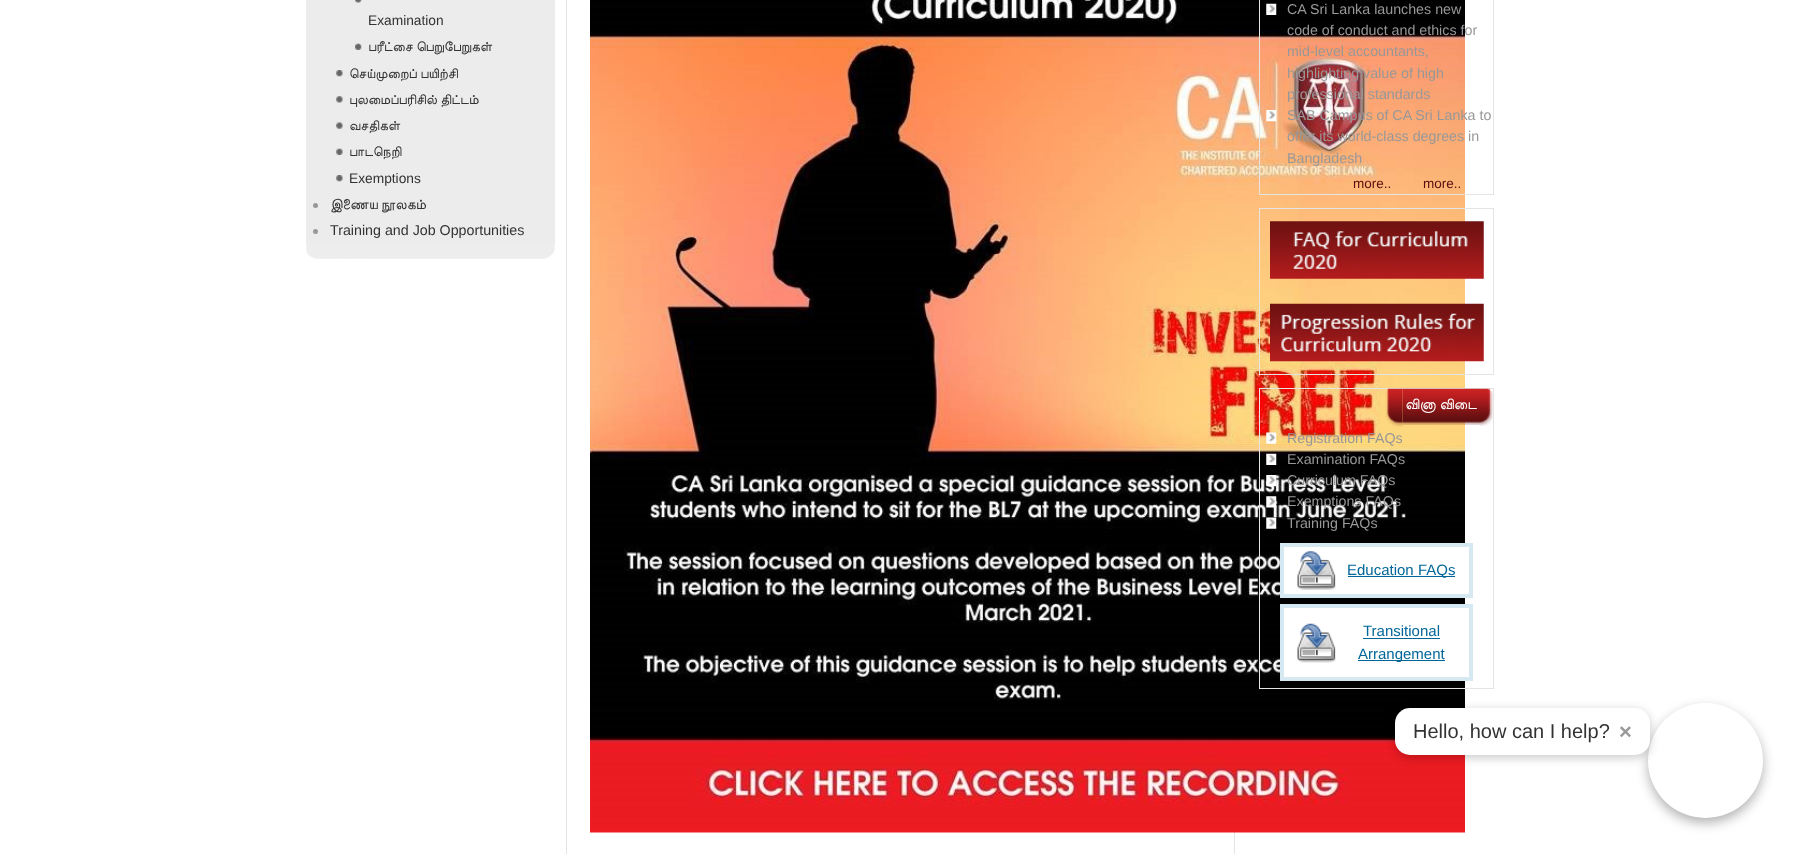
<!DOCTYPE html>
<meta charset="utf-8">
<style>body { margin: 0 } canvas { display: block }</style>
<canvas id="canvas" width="1799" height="854"></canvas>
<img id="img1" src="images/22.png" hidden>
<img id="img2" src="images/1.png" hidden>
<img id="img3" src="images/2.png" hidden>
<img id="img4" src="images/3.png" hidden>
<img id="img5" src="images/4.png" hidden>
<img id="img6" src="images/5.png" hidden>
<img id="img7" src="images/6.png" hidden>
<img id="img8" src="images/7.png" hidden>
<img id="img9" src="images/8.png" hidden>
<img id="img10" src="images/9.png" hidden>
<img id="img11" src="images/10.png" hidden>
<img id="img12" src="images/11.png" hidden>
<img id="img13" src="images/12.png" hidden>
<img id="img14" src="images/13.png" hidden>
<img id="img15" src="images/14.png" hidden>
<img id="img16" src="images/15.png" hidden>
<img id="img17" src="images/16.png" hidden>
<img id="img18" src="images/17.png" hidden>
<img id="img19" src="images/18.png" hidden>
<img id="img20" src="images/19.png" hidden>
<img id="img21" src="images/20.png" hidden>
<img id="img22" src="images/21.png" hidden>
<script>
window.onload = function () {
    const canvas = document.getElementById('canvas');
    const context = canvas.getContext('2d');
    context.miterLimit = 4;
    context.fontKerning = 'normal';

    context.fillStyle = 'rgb(255, 255, 255)';
    context.fillRect(0, 0, 1799, 854);
    context.strokeStyle = 'rgb(228, 228, 228)';
    context.strokeRect(566.5, -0.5, 668, 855);
    context.drawImage(document.getElementById('img1'), 590, 0, 875, 833);
    context.strokeRect(1259.5, -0.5, 234, 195);
    context.drawImage(document.getElementById('img2'), 1266, 3, 11, 12);
    context.drawImage(document.getElementById('img3'), 1266, 110, 11, 12);
    context.strokeRect(1259.5, 208.5, 234, 166);
    context.drawImage(document.getElementById('img4'), 1270, 221, 214, 58);
    context.drawImage(document.getElementById('img5'), 1270, 303, 214, 59);
    context.strokeRect(1259.5, 388.5, 234, 300);
    context.drawImage(document.getElementById('img6'), 1385, 388, 18, 39);
    context.drawImage(document.getElementById('img7'), 1402, 388, 78, 37);
    context.drawImage(document.getElementById('img8'), 1480, 388, 13, 38);
    context.drawImage(document.getElementById('img9'), 1266, 432, 11, 12);
    context.drawImage(document.getElementById('img10'), 1266, 453, 11, 12);
    context.drawImage(document.getElementById('img11'), 1266, 475, 11, 12);
    context.drawImage(document.getElementById('img12'), 1266, 496, 11, 12);
    context.drawImage(document.getElementById('img13'), 1266, 517, 11, 12);
    context.fillRect(1284, 547, 181, 47);
    context.drawImage(document.getElementById('img14'), 1297, 551, 39, 39);
    context.strokeStyle = 'rgb(214, 233, 243)';
    context.lineWidth = 4;
    context.strokeRect(1282, 545, 189, 51);
    context.fillStyle = 'rgb(0, 102, 153)';
    context.fillRect(1348, 576, 107, 1);
    context.fillStyle = 'rgb(255, 255, 255)';
    context.fillRect(1284, 608, 181, 69);
    context.drawImage(document.getElementById('img15'), 1297, 623, 39, 40);
    context.strokeRect(1282, 606, 189, 73);
    context.fillStyle = 'rgb(0, 102, 153)';
    context.fillRect(1363, 638, 77, 1);
    context.fillRect(1358, 660, 87, 1);
    context.drawImage(document.getElementById('img16'), 306, 244, 249, 15);
    context.fillStyle = 'rgb(236, 236, 236)';
    context.fillRect(306, 0, 249, 244);
    context.drawImage(document.getElementById('img17'), 355, 0, 7, 3);
    context.drawImage(document.getElementById('img18'), 355, 43, 7, 7);
    context.drawImage(document.getElementById('img19'), 336, 70, 7, 7);
    context.drawImage(document.getElementById('img20'), 336, 96, 7, 7);
    context.drawImage(document.getElementById('img21'), 336, 122, 7, 7);
    context.drawImage(document.getElementById('img22'), 336, 148, 7, 7);
    context.drawImage(document.getElementById('img19'), 336, 175, 7, 7);
    context.fillStyle = 'rgb(152, 152, 152)';
    context.beginPath();
    context.arc(315.5, 205.5, 2.5, 0, 2 * Math.PI);
    context.fill();
    context.beginPath();
    context.arc(315.5, 231.5, 2.5, 0, 2 * Math.PI);
    context.fill();
    context.fillStyle = 'rgba(0, 0, 0, 0.3)';
    context.filter = 'blur(6px)';
    context.beginPath();
    context.roundRect(1648, 708, 115, 115, 57.5);
    context.fill();
    context.filter = 'none';
    context.fillStyle = 'rgb(255, 255, 255)';
    context.beginPath();
    context.arc(1705.5, 760.5, 57.5, 0, 2 * Math.PI);
    context.fill();
    context.fillStyle = 'rgba(0, 0, 0, 0.2)';
    context.filter = 'blur(5px)';
    context.beginPath();
    context.roundRect(1395, 710, 255, 48, 15);
    context.fill();
    context.filter = 'none';
    context.fillStyle = 'rgb(255, 255, 255)';
    context.beginPath();
    context.roundRect(1395, 708, 255, 47, 15);
    context.fill();
    context.font = '14.25px Liberation Sans';
    context.fillStyle = 'rgb(152, 152, 152)';
    context.fillText('CA Sri Lanka launches new', 1287, 14);
    context.fillText('code of conduct and ethics for', 1287, 35);
    context.fillText('mid-level accountants,', 1287, 56);
    context.fillText('highlighting value of high', 1287, 78);
    context.fillText('professional standards', 1287, 99);
    context.fillText('SAB Campus of CA Sri Lanka to', 1287, 120);
    context.fillText('offer its world-class degrees in', 1287, 141);
    context.fillText('Bangladesh', 1287, 163);
    context.font = '13.5px Liberation Sans';
    context.fillStyle = 'rgb(91, 14, 15)';
    context.fillText('more..', 1353, 188);
    context.fillText('more..', 1423, 188);
    context.font = '15px FreeSans';
    context.fillStyle = 'rgb(255, 255, 255)';
    context.fillText('வினா விடை', 1405, 409);
    context.font = '14.25px Liberation Sans';
    context.fillStyle = 'rgb(152, 152, 152)';
    context.fillText('Registration FAQs', 1287, 443);
    context.fillText('Examination FAQs', 1287, 464);
    context.fillText('Curriculum FAQs', 1287, 485);
    context.fillText('Exemptions FAQs', 1287, 506);
    context.fillText('Training FAQs', 1287, 528);
    context.font = '15px Liberation Sans';
    context.fillStyle = 'rgb(0, 102, 153)';
    context.fillText('Education FAQs', 1347, 575);
    context.fillText('Transitional', 1363, 636);
    context.fillText('Arrangement', 1358, 659);
    context.font = '13.75px Liberation Sans';
    context.fillStyle = 'rgb(51, 51, 51)';
    context.fillText('Examination', 368, 25);
    context.font = '13.75px FreeSans';
    context.fillText('பரீட்சை பெறுபேறுகள்', 368, 51);
    context.fillText('செய்முறைப் பயிற்சி', 349, 78);
    context.fillText('புலமைப்பரிசில் திட்டம்', 349, 104);
    context.fillText('வசதிகள்', 349, 130);
    context.fillText('பாடநெறி', 349, 156);
    context.font = '13.75px Liberation Sans';
    context.fillText('Exemptions', 349, 183);
    context.font = '14.25px FreeSans';
    context.fillText('இணைய நூலகம்', 330, 209);
    context.font = '14.25px Liberation Sans';
    context.fillText('Training and Job Opportunities', 330, 235);
    context.font = '20px Liberation Sans';
    context.fillText('Hello, how can I help?', 1413, 738);
    context.font = 'bold 22px Liberation Sans';
    context.fillStyle = 'rgb(152, 152, 152)';
    context.fillText('×', 1619, 739);
};
</script>
